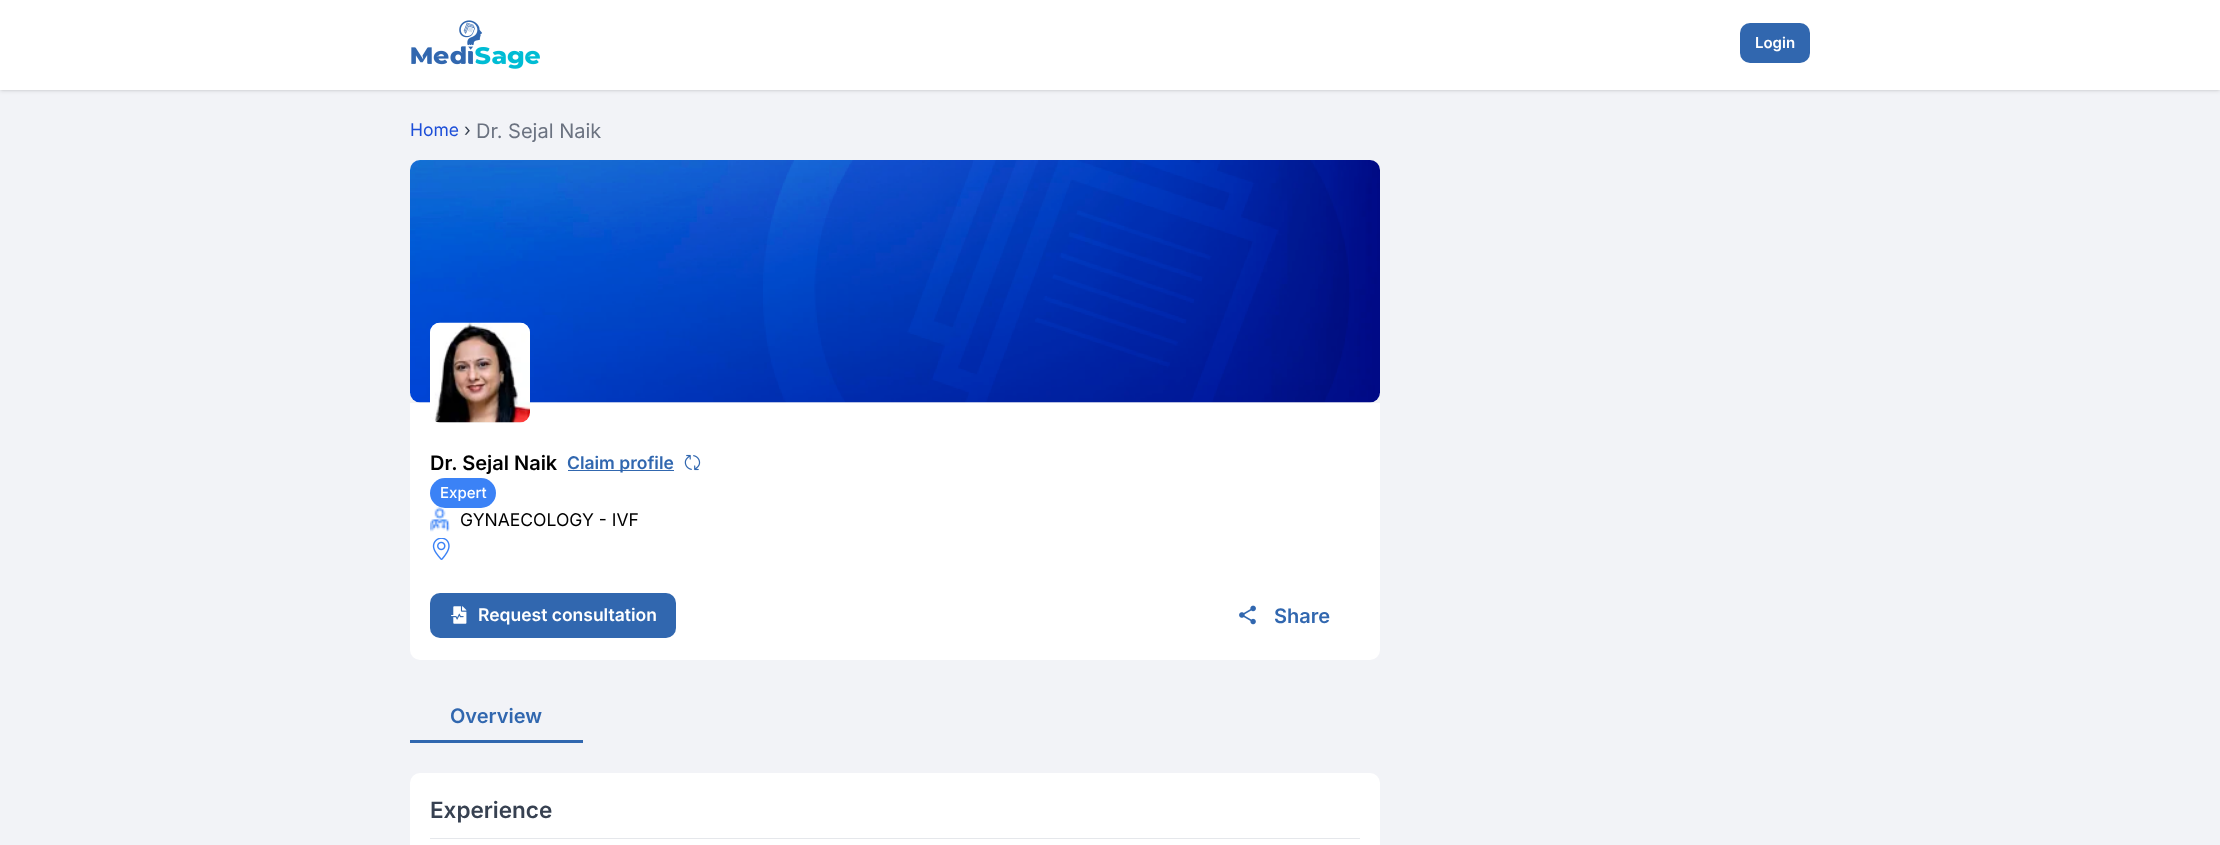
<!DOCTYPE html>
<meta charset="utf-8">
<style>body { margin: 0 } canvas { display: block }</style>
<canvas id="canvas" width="2220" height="845"></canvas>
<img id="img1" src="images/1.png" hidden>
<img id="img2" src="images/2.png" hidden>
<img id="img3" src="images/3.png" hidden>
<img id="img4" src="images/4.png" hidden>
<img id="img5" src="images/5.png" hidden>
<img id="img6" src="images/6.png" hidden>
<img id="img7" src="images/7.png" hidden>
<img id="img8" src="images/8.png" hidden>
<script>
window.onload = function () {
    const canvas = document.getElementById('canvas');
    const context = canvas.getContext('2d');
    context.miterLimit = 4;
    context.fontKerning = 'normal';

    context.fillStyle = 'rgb(242, 243, 247)';
    context.fillRect(0, 0, 2220, 845);
    context.fillStyle = 'rgba(0, 0, 0, 0.1)';
    context.filter = 'blur(1px)';
    context.beginPath();
    context.rect(1, 3, 2218, 87);
    context.fill();
    context.filter = 'none';
    context.filter = 'blur(2px)';
    context.beginPath();
    context.rect(0, 1, 2220, 90);
    context.fill();
    context.filter = 'none';
    context.fillStyle = 'rgb(255, 255, 255)';
    context.fillRect(0, 0, 2220, 90);
    context.drawImage(document.getElementById('img1'), 411, 20, 129, 49);
    context.fillStyle = 'rgb(49, 103, 175)';
    context.beginPath();
    context.roundRect(1740, 23, 70, 40, 10);
    context.fill();
    context.drawImage(document.getElementById('img2'), 410, 160, 970, 243);
    context.fillStyle = 'rgb(255, 255, 255)';
    context.beginPath();
    context.roundRect(410, 403, 970, 257, [0, 0, 10, 10]);
    context.fill();
    context.fillStyle = 'rgb(249, 250, 251)';
    context.beginPath();
    context.roundRect(430, 323, 100, 100, 10);
    context.fill();
    context.drawImage(document.getElementById('img3'), 430, 322, 100, 101);
    context.fillStyle = 'rgb(49, 103, 175)';
    context.fillRect(568, 470, 106, 1);
    context.drawImage(document.getElementById('img4'), 684, 454, 17, 17);
    context.drawImage(document.getElementById('img5'), 430, 507, 20, 25);
    context.fillStyle = 'rgb(59, 130, 246)';
    context.beginPath();
    context.roundRect(430, 478, 66, 30, 15);
    context.fill();
    context.drawImage(document.getElementById('img6'), 432, 538, 18, 22);
    context.fillStyle = 'rgb(49, 103, 175)';
    context.beginPath();
    context.roundRect(430, 593, 246, 45, 10);
    context.fill();
    context.drawImage(document.getElementById('img7'), 451, 606, 16, 18);
    context.drawImage(document.getElementById('img8'), 1239, 605, 17, 20);
    context.fillRect(410, 740, 173, 3);
    context.fillStyle = 'rgb(255, 255, 255)';
    context.beginPath();
    context.roundRect(410, 773, 970, 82, 10);
    context.fill();
    context.fillStyle = 'rgb(229, 231, 235)';
    context.fillRect(430, 838, 930, 1);
    context.font = '600 15px Inter';
    context.fillStyle = 'rgb(255, 255, 255)';
    context.fillText('Login', 1755, 48);
    context.font = '17.5px Inter';
    context.fillStyle = 'rgb(29, 78, 216)';
    context.fillText('Home', 410, 136);
    context.fillStyle = 'rgb(55, 65, 81)';
    context.fillText('›', 464, 136);
    context.font = '20px Inter';
    context.fillStyle = 'rgb(107, 114, 128)';
    context.fillText('Dr. Sejal Naik', 476, 138);
    context.font = '600 20px Inter';
    context.fillStyle = 'rgb(0, 0, 0)';
    context.fillText('Dr. Sejal Naik', 430, 470);
    context.font = '600 17.5px Inter';
    context.fillStyle = 'rgb(49, 103, 175)';
    context.fillText('Claim profile', 567, 469);
    context.font = '500 15px Inter';
    context.fillStyle = 'rgb(255, 255, 255)';
    context.fillText('Expert', 440, 498);
    context.font = '17.5px Inter';
    context.fillStyle = 'rgb(0, 0, 0)';
    context.fillText('GYNAECOLOGY - IVF', 460, 526);
    context.font = '600 17.5px Inter';
    context.fillStyle = 'rgb(255, 255, 255)';
    context.fillText('Request consultation', 478, 621);
    context.font = '600 20px Inter';
    context.fillStyle = 'rgb(49, 103, 175)';
    context.fillText('Share', 1274, 623);
    context.fillText('Overview', 450, 723);
    context.font = '600 22.5px Inter';
    context.fillStyle = 'rgb(55, 65, 81)';
    context.fillText('Experience', 430, 818);
};
</script>
